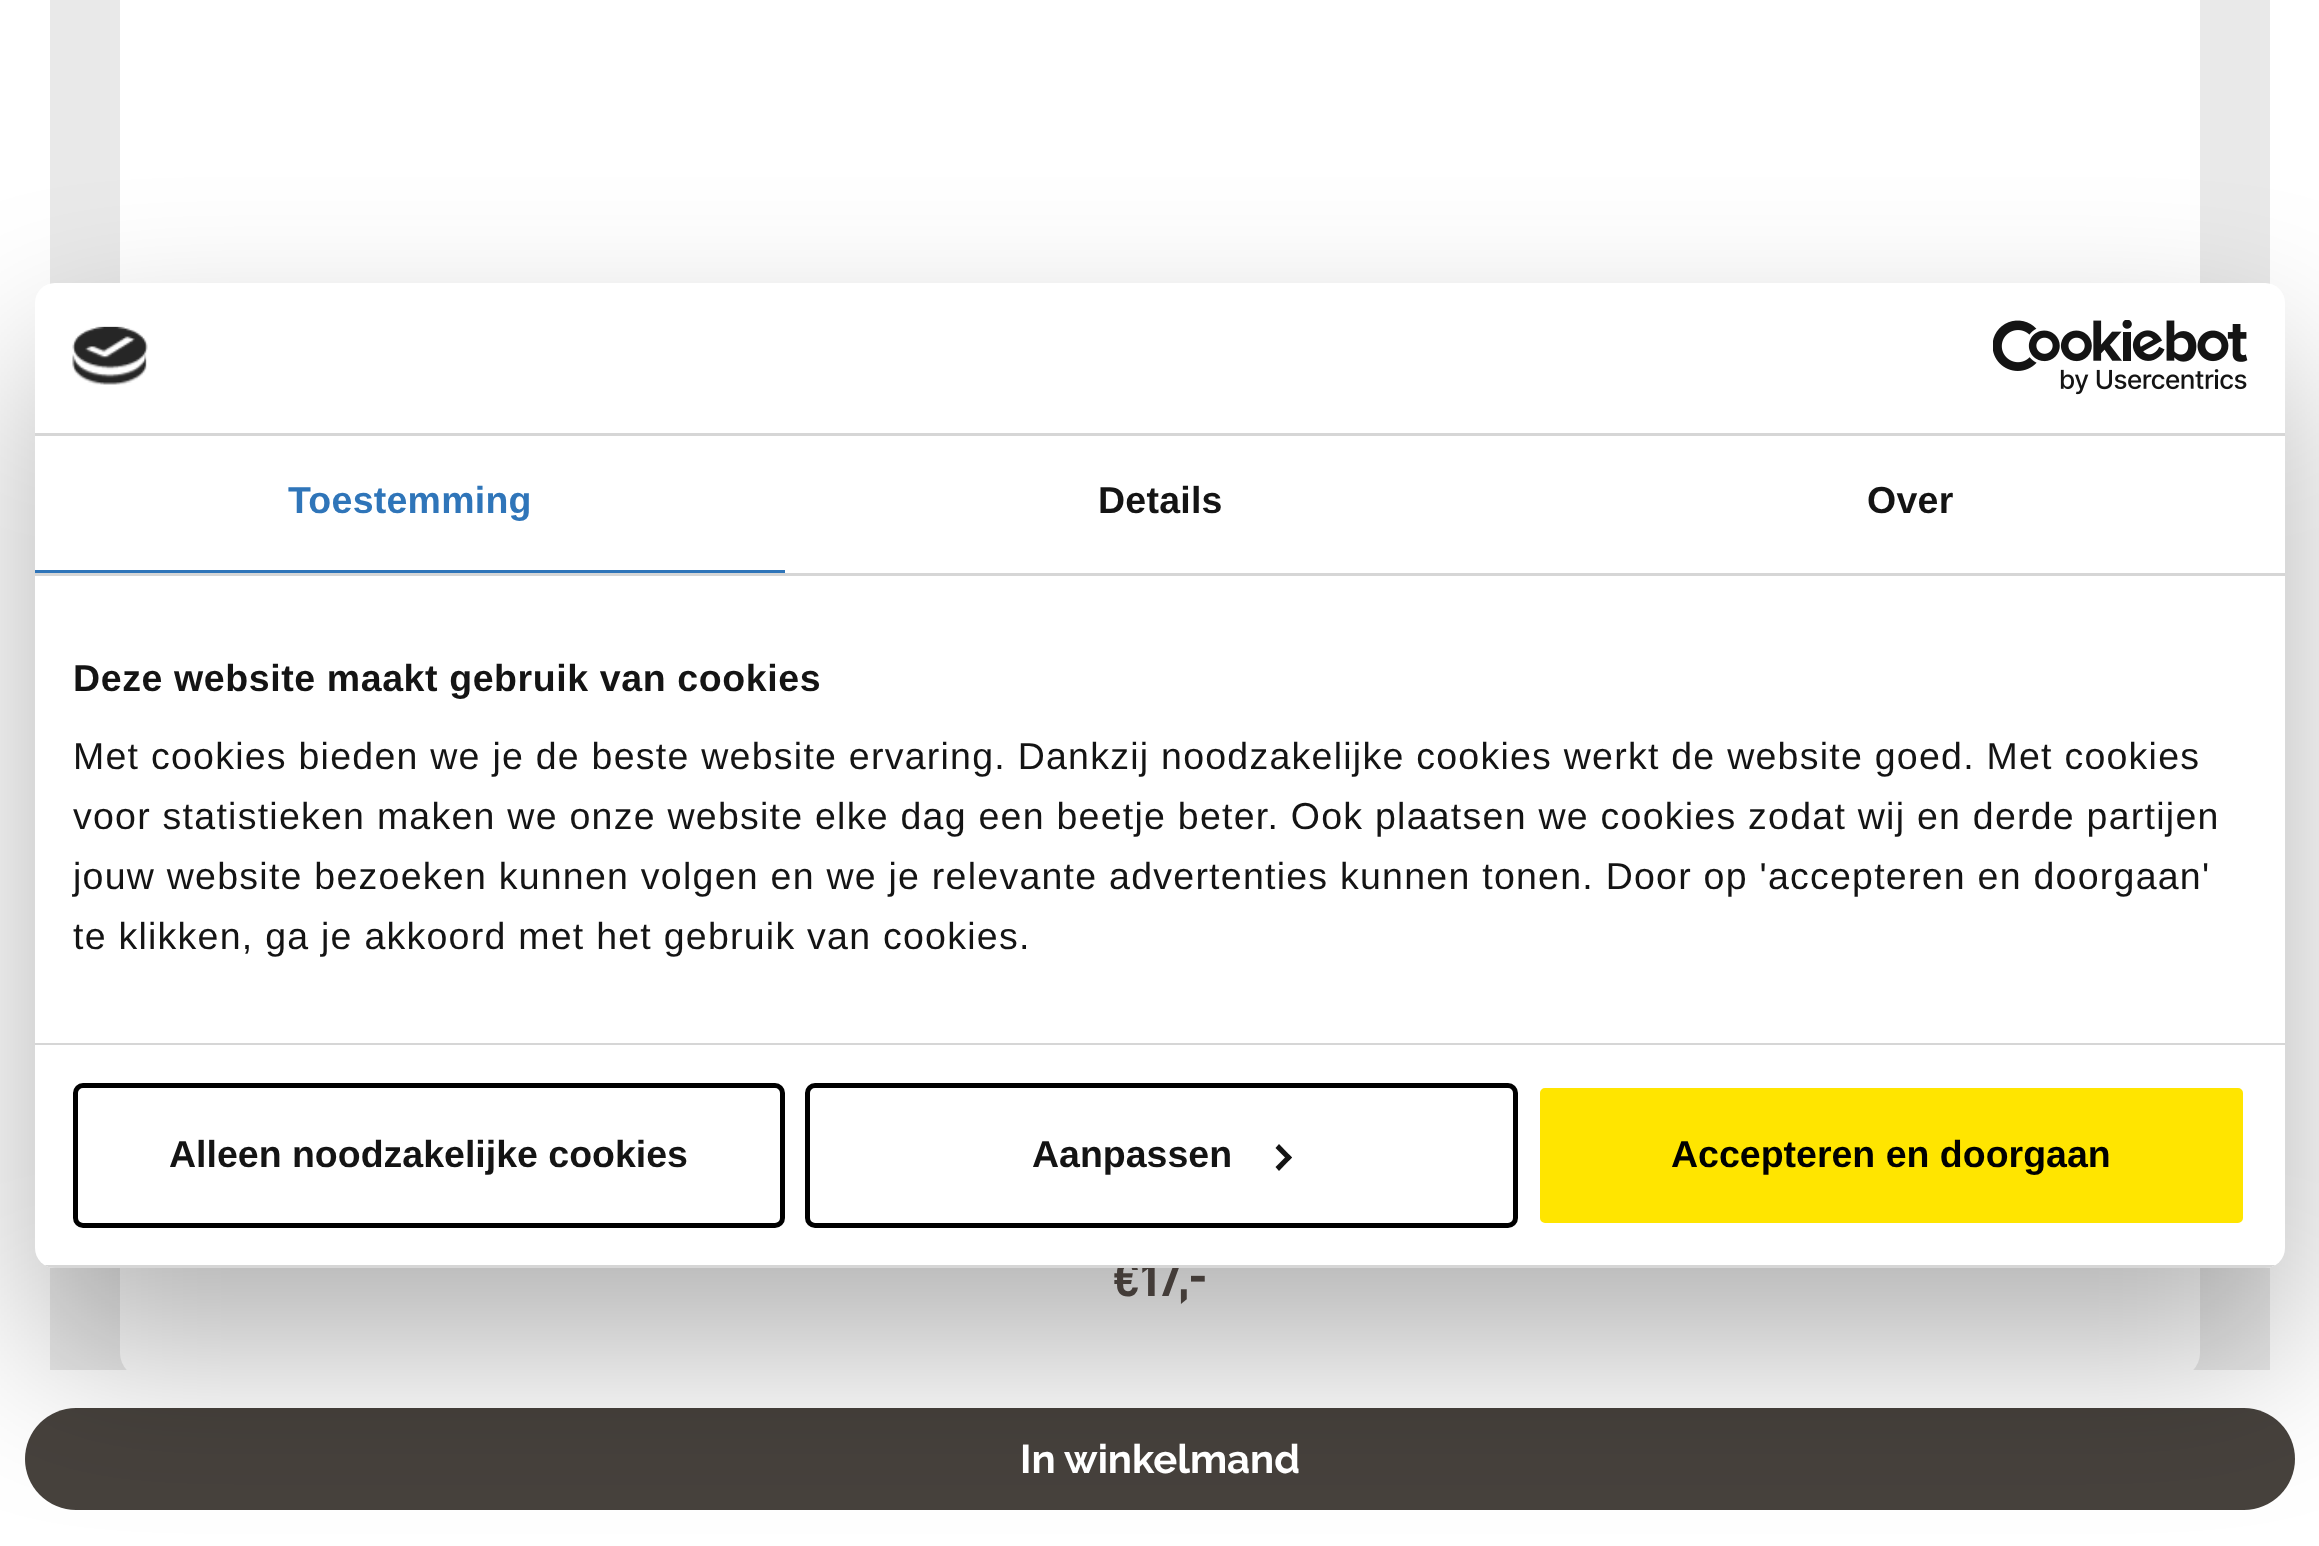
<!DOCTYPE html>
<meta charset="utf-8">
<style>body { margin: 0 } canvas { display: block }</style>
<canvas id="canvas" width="2319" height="1546"></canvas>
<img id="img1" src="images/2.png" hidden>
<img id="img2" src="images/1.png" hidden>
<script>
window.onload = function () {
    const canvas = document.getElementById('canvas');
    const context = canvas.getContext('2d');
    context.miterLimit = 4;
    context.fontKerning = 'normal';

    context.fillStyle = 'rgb(255, 255, 255)';
    context.fillRect(0, 0, 2319, 1546);
    context.fillStyle = 'rgb(233, 233, 233)';
    context.fillRect(50, 0, 2220, 1370);
    context.fillStyle = 'rgb(255, 255, 255)';
    context.beginPath();
    context.roundRect(120, -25, 2080, 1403, 25);
    context.fill();
    context.fillStyle = 'rgb(71, 66, 61)';
    context.beginPath();
    context.roundRect(25, 1408, 2270, 102, 51);
    context.fill();
    context.fillStyle = 'rgba(0, 0, 0, 0.3)';
    context.filter = 'blur(85px)';
    context.beginPath();
    context.roundRect(35, 363, 2250, 985, 20);
    context.fill();
    context.filter = 'none';
    context.font = 'bold 50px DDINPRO';
    context.fillStyle = 'rgb(67, 60, 56)';
    context.fillText('€17', 1113, 1296);
    context.fillStyle = 'rgb(255, 255, 255)';
    context.beginPath();
    context.roundRect(35, 283, 2250, 985, 20);
    context.fill();
    context.beginPath();
    context.roundRect(807.5, 1085.5, 708, 140, 7.5);
    context.strokeStyle = 'rgb(0, 0, 0)';
    context.lineWidth = 5;
    context.stroke();
    context.fillStyle = 'rgb(20, 20, 20)';
    context.beginPath();
    context.moveTo(1279, 1144);
    context.lineTo(1292, 1157.5);
    context.lineTo(1288.5, 1161);
    context.lineTo(1275.5, 1148);
    context.closePath();
    context.fill();
    context.beginPath();
    context.moveTo(1288.5, 1154);
    context.lineTo(1292, 1157.5);
    context.lineTo(1279, 1171);
    context.lineTo(1275.5, 1167);
    context.closePath();
    context.fill();
    context.fillStyle = 'rgb(255, 229, 0)';
    context.beginPath();
    context.roundRect(1537.5, 1085.5, 708, 140, 7.5);
    context.fill();
    context.strokeStyle = 'rgb(255, 255, 255)';
    context.stroke();
    context.font = 'bold 37.5px Liberation Sans';
    context.fillStyle = 'rgb(0, 0, 0)';
    context.fillText('Accepteren en doorgaan', 1671, 1167);
    context.fillStyle = 'rgb(20, 20, 20)';
    context.fillText('Aanpassen', 1032, 1167);
    context.beginPath();
    context.roundRect(75.5, 1085.5, 707, 140, 7.5);
    context.strokeStyle = 'rgb(0, 0, 0)';
    context.stroke();
    context.fillText('Alleen noodzakelijke cookies', 169, 1167);
    context.save();
    context.beginPath();
    context.roundRect(35, 283, 2250, 985, 20);
    context.clip();
    context.fillStyle = 'rgb(214, 214, 214)';
    context.fillRect(44, 1265, 2232, 3);
    context.restore();
    context.letterSpacing = '1.25px';
    context.font = '37.5px Liberation Sans';
    context.fillText('te klikken, ga je akkoord met het gebruik van cookies.', 73, 949);
    context.fillText('jouw website bezoeken kunnen volgen en we je relevante advertenties kunnen tonen. Door op \'accepteren en doorgaan\'', 73, 889);
    context.fillText('voor statistieken maken we onze website elke dag een beetje beter. Ook plaatsen we cookies zodat wij en derde partijen', 73, 829);
    context.fillText('Met cookies bieden we je de beste website ervaring. Dankzij noodzakelijke cookies werkt de website goed. Met cookies', 73, 769);
    context.letterSpacing = '0.6px';
    context.font = 'bold 37.5px Liberation Sans';
    context.fillText('Deze website maakt gebruik van cookies', 73, 691);
    context.fillStyle = 'rgb(214, 214, 214)';
    context.fillRect(35, 1043, 2250, 2);
    context.letterSpacing = '0.25px';
    context.fillStyle = 'rgb(20, 20, 20)';
    context.fillText('Over', 1867, 513);
    context.fillText('Details', 1098, 513);
    context.fillStyle = 'rgb(47, 117, 185)';
    context.fillText('Toestemming', 288, 513);
    context.fillRect(35, 570, 750, 3);
    context.fillStyle = 'rgb(214, 214, 214)';
    context.fillRect(35, 573, 2250, 3);
    context.drawImage(document.getElementById('img1'), 1993, 320, 255, 75);
    context.drawImage(document.getElementById('img2'), 72, 326, 76, 59);
    context.fillRect(35, 433, 2250, 3);
    context.letterSpacing = '0px';
    context.font = 'bold 50px DDINPRO';
    context.fillStyle = 'rgb(67, 60, 56)';
    context.fillText(',-', 1179, 1296);
    context.font = 'bold 40px Raleway';
    context.fillStyle = 'rgb(255, 255, 255)';
    context.fillText('In winkelmand', 1020, 1473);
};
</script>
